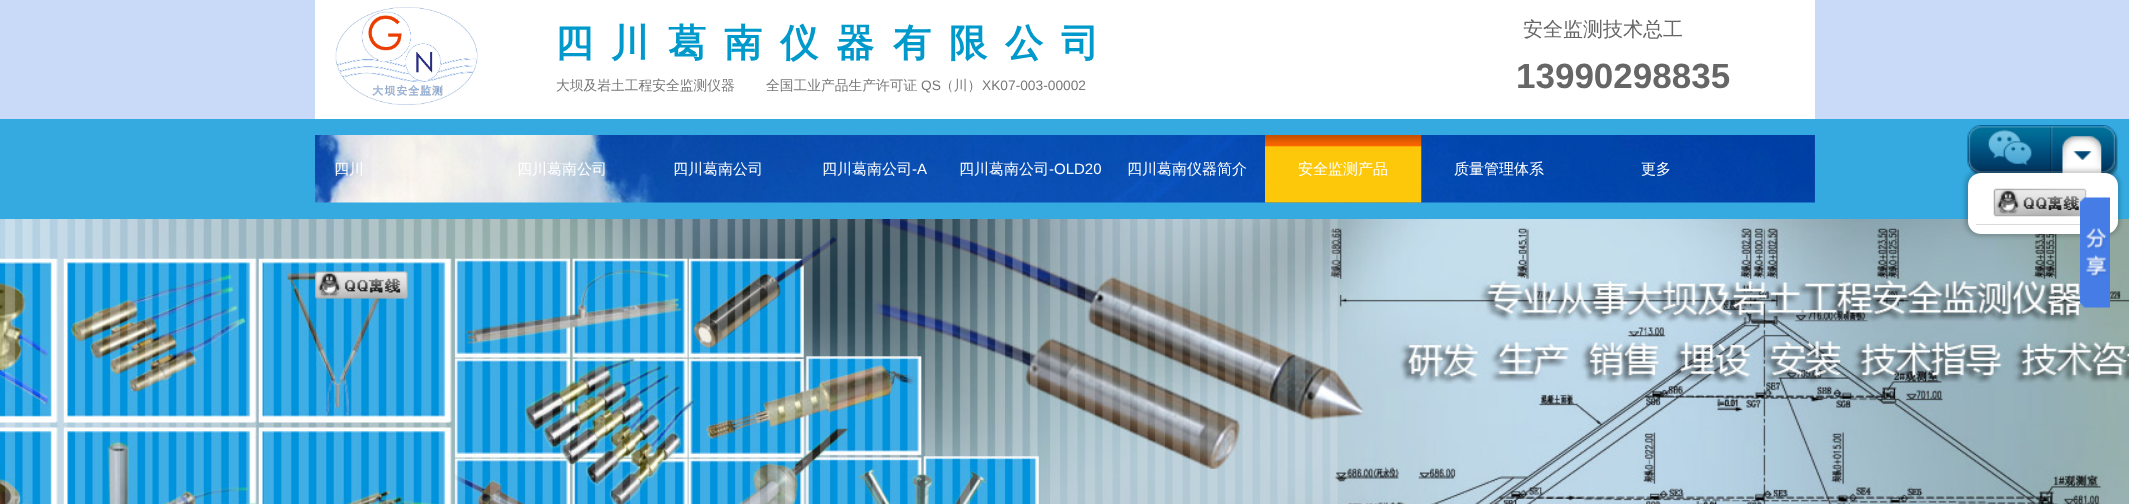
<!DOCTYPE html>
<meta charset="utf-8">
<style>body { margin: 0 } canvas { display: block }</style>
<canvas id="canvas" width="2129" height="504"></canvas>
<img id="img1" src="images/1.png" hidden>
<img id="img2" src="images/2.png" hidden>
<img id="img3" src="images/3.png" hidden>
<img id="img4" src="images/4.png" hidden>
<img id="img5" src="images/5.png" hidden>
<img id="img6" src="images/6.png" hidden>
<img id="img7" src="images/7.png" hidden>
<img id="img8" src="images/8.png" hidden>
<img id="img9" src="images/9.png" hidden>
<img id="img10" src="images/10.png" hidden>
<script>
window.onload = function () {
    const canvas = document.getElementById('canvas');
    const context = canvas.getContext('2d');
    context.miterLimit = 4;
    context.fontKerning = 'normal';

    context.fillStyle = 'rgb(201, 218, 248)';
    context.fillRect(0, 0, 2129, 504);
    context.fillStyle = 'rgb(255, 255, 255)';
    context.fillRect(315, 0, 1500, 119);
    context.drawImage(document.getElementById('img1'), 335, 7, 143, 98);
    context.fillStyle = 'rgb(53, 170, 224)';
    context.fillRect(0, 119, 2129, 100);
    context.drawImage(document.getElementById('img2'), 315, 135, 1500, 68);
    context.drawImage(document.getElementById('img3'), 1265, 135, 157, 68);
    context.drawImage(document.getElementById('img4'), 0, 219, 2129, 285);
    context.drawImage(document.getElementById('img5'), 315, 271, 93, 28);
    context.drawImage(document.getElementById('img6'), 1967, 125, 151, 51);
    context.drawImage(document.getElementById('img7'), 2062, 136, 40, 37);
    context.drawImage(document.getElementById('img8'), 2073, 151, 19, 9);
    context.fillStyle = 'rgba(0, 0, 0, 0.2)';
    context.filter = 'blur(2px)';
    context.beginPath();
    context.roundRect(1965, 170, 155, 66, 15);
    context.fill();
    context.filter = 'none';
    context.fillStyle = 'rgb(255, 255, 255)';
    context.beginPath();
    context.roundRect(1968, 173, 150, 61, 13);
    context.fill();
    context.fillStyle = 'rgb(217, 217, 217)';
    context.fillRect(1976, 224, 104, 1);
    context.drawImage(document.getElementById('img9'), 1993, 188, 94, 29);
    context.drawImage(document.getElementById('img10'), 2080, 197, 30, 111);
    context.font = 'bold 38px WenQuanYi Zen Hei';
    context.fillStyle = 'rgb(0, 153, 204)';
    context.fillText('四', 555, 56);
    context.fillText('川', 611, 56);
    context.fillText('葛', 668, 56);
    context.fillText('南', 724, 56);
    context.fillText('仪', 780, 56);
    context.fillText('器', 836, 56);
    context.fillText('有', 893, 56);
    context.fillText('限', 949, 56);
    context.fillText('公', 1005, 56);
    context.fillText('司', 1061, 56);
    context.font = '500 20px WenQuanYi Zen Hei';
    context.fillStyle = 'rgb(102, 102, 102)';
    context.fillText('安全监测技术总工', 1523, 36);
    context.font = '500 13.75px WenQuanYi Zen Hei';
    context.fillStyle = 'rgb(120, 120, 120)';
    context.fillText('大坝及岩土工程安全监测仪器', 556, 90);
    context.fillText('全国工业产品生产许可证', 766, 90);
    context.font = '13.75px Liberation Sans';
    context.fillText('QS', 921, 90);
    context.font = '500 13.75px WenQuanYi Zen Hei';
    context.fillText('（川）', 940, 90);
    context.font = '13.75px Liberation Sans';
    context.fillText('XK07-003-00002', 982, 90);
    context.font = 'bold 35px Liberation Sans';
    context.fillStyle = 'rgb(102, 102, 102)';
    context.fillText('13990298835', 1516, 88);
    context.font = '500 15px WenQuanYi Zen Hei';
    context.fillStyle = 'rgb(255, 255, 255)';
    context.fillText('四川', 334, 174);
    context.fillText('四川葛南公司', 517, 174);
    context.fillText('四川葛南公司', 673, 174);
    context.fillText('四川葛南公司', 822, 174);
    context.font = '15px Liberation Sans';
    context.fillText('-A', 912, 174);
    context.font = '500 15px WenQuanYi Zen Hei';
    context.fillText('四川葛南公司', 959, 174);
    context.font = '15px Liberation Sans';
    context.fillText('-OLD20', 1049, 174);
    context.font = '500 15px WenQuanYi Zen Hei';
    context.fillText('四川葛南仪器简介', 1127, 174);
    context.fillText('安全监测产品', 1298, 174);
    context.fillText('质量管理体系', 1454, 174);
    context.fillText('更多', 1641, 174);
};
</script>
